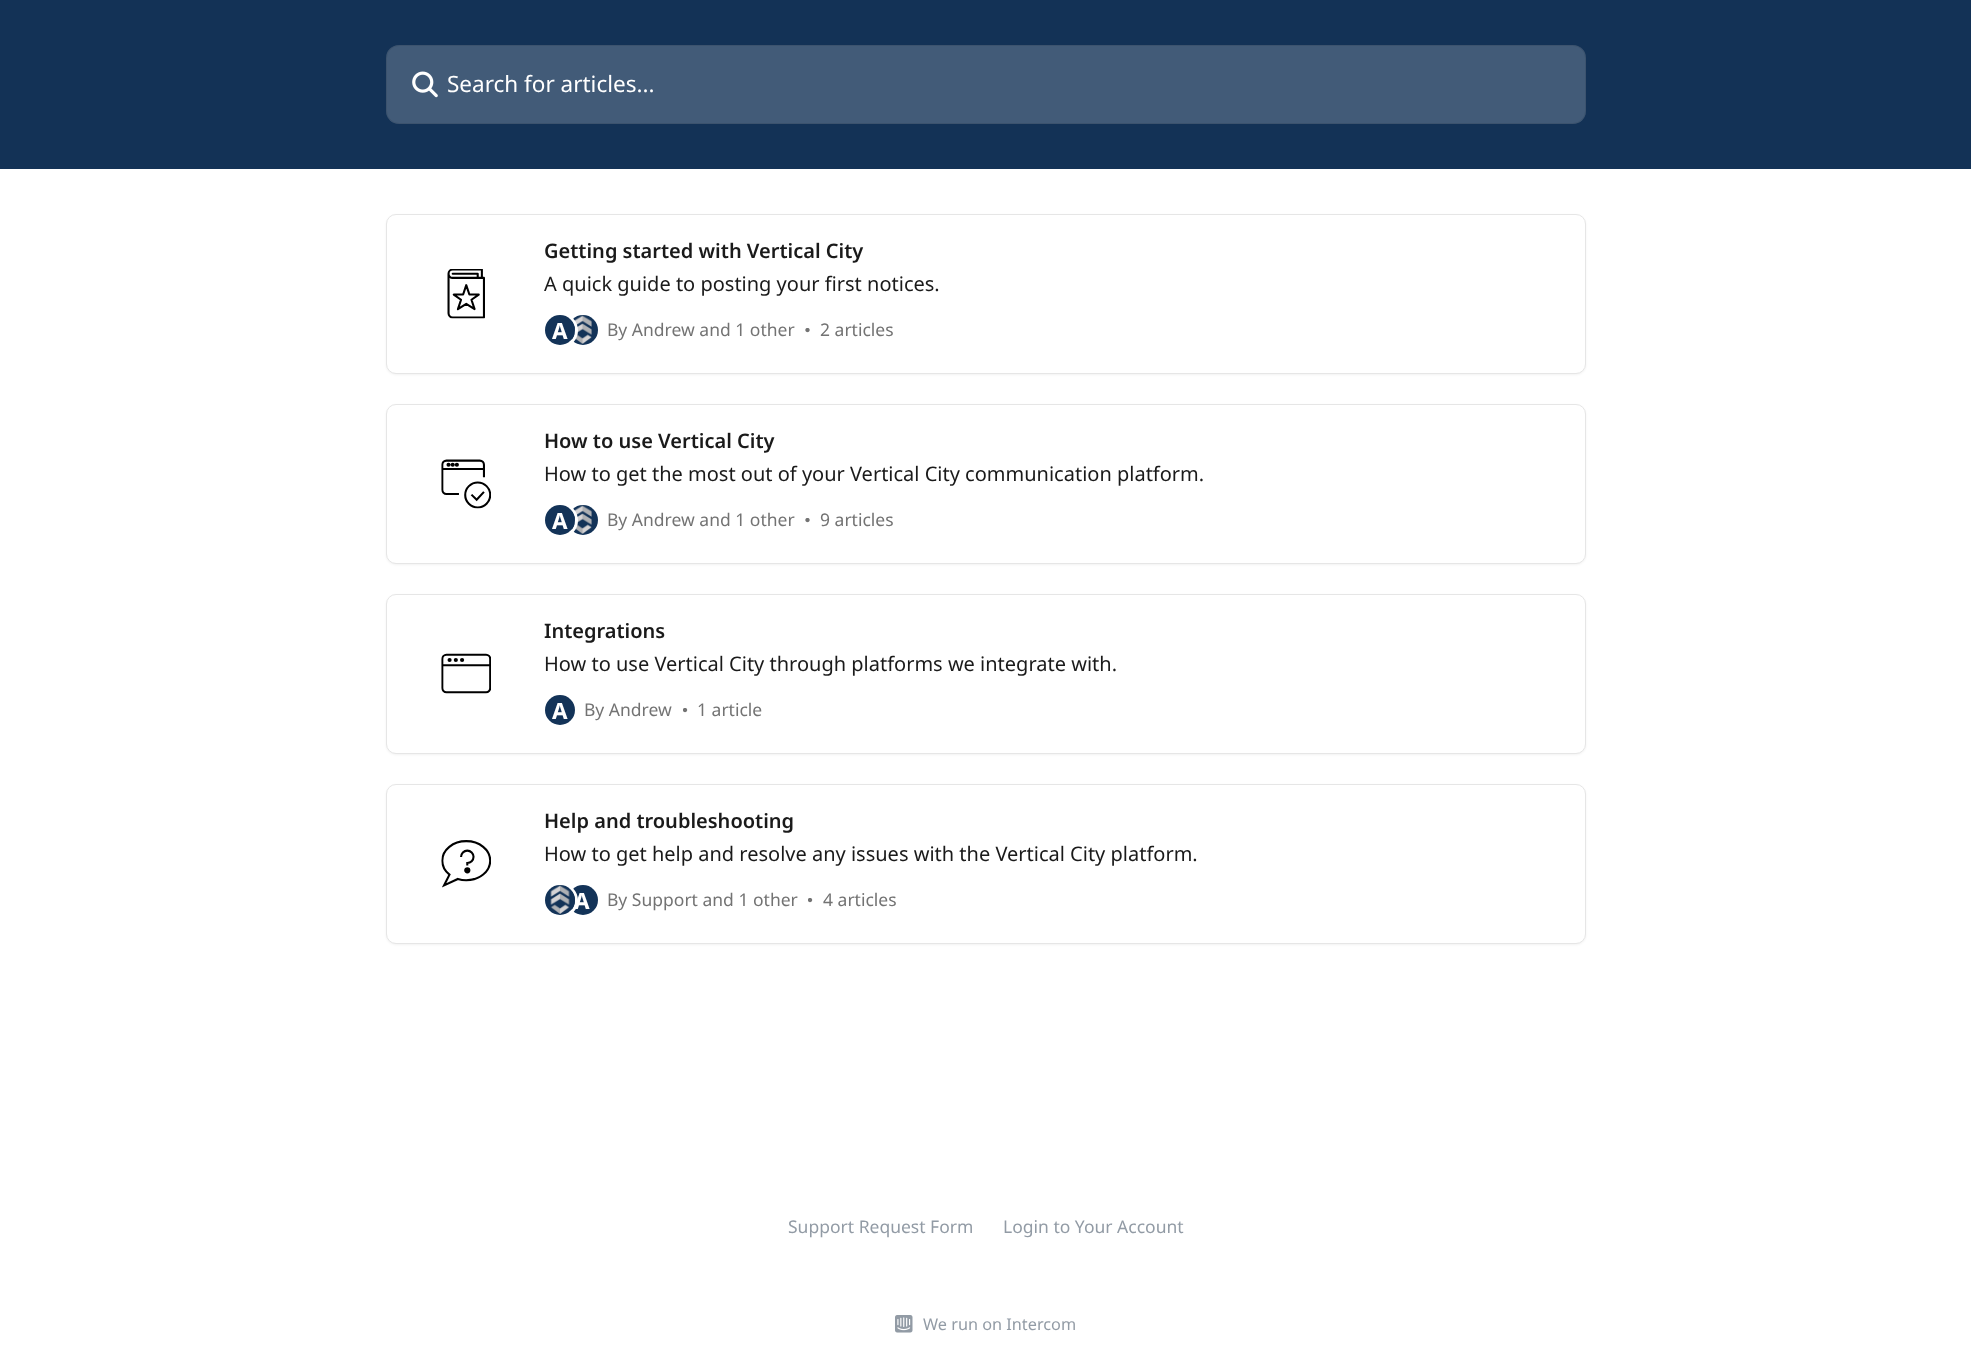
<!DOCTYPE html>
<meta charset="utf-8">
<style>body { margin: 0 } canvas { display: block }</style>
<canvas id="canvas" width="1971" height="1354"></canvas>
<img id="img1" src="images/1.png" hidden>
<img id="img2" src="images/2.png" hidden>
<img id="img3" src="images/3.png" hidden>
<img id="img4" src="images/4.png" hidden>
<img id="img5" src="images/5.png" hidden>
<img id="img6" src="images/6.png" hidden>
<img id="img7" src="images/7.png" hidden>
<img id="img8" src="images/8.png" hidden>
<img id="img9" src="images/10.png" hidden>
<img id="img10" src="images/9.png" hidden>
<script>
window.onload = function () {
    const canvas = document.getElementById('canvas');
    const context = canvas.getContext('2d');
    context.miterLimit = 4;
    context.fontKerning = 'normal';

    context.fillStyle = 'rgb(255, 255, 255)';
    context.fillRect(0, 0, 1971, 1354);
    context.fillStyle = 'rgb(19, 50, 86)';
    context.fillRect(0, 0, 1971, 169);
    context.fillStyle = 'rgb(66, 91, 120)';
    context.beginPath();
    context.roundRect(386, 45, 1200, 79, 13);
    context.fill();
    context.beginPath();
    context.roundRect(386.5, 45.5, 1199, 78, 12.5);
    context.strokeStyle = 'rgba(0, 0, 0, 0.08)';
    context.stroke();
    context.drawImage(document.getElementById('img1'), 412, 71, 26, 27);
    context.fillStyle = 'rgba(0, 0, 0, 0.05)';
    context.filter = 'blur(1px)';
    context.beginPath();
    context.roundRect(386, 215, 1200, 160, 10);
    context.fill();
    context.filter = 'none';
    context.fillStyle = 'rgb(255, 255, 255)';
    context.beginPath();
    context.roundRect(386.5, 214.5, 1199, 159, 9.5);
    context.fill();
    context.strokeStyle = 'rgb(230, 230, 230)';
    context.stroke();
    context.drawImage(document.getElementById('img2'), 447, 269, 38, 50);
    context.fillStyle = 'rgb(19, 51, 88)';
    context.beginPath();
    context.arc(583, 330, 15, 0, 2 * Math.PI);
    context.fill();
    context.drawImage(document.getElementById('img3'), 573, 315, 19, 29);
    context.beginPath();
    context.arc(560.5, 330.5, 16, 0, 2 * Math.PI);
    context.strokeStyle = 'rgb(255, 255, 255)';
    context.lineWidth = 3;
    context.stroke();
    context.beginPath();
    context.arc(560, 330, 15, 0, 2 * Math.PI);
    context.fill();
    context.drawImage(document.getElementById('img4'), 805, 328, 5, 5);
    context.fillStyle = 'rgba(0, 0, 0, 0.05)';
    context.filter = 'blur(1px)';
    context.beginPath();
    context.roundRect(386, 405, 1200, 160, 10);
    context.fill();
    context.filter = 'none';
    context.fillStyle = 'rgb(255, 255, 255)';
    context.beginPath();
    context.roundRect(386.5, 404.5, 1199, 159, 9.5);
    context.fill();
    context.strokeStyle = 'rgb(230, 230, 230)';
    context.lineWidth = 1;
    context.stroke();
    context.drawImage(document.getElementById('img5'), 441, 459, 50, 50);
    context.fillStyle = 'rgb(19, 51, 88)';
    context.beginPath();
    context.arc(583, 520, 15, 0, 2 * Math.PI);
    context.fill();
    context.drawImage(document.getElementById('img3'), 573, 505, 19, 29);
    context.beginPath();
    context.arc(560.5, 520.5, 16, 0, 2 * Math.PI);
    context.strokeStyle = 'rgb(255, 255, 255)';
    context.lineWidth = 3;
    context.stroke();
    context.beginPath();
    context.arc(560, 520, 15, 0, 2 * Math.PI);
    context.fill();
    context.drawImage(document.getElementById('img4'), 805, 518, 5, 5);
    context.fillStyle = 'rgba(0, 0, 0, 0.05)';
    context.filter = 'blur(1px)';
    context.beginPath();
    context.roundRect(386, 595, 1200, 160, 10);
    context.fill();
    context.filter = 'none';
    context.fillStyle = 'rgb(255, 255, 255)';
    context.beginPath();
    context.roundRect(386.5, 594.5, 1199, 159, 9.5);
    context.fill();
    context.strokeStyle = 'rgb(230, 230, 230)';
    context.lineWidth = 1;
    context.stroke();
    context.drawImage(document.getElementById('img6'), 441, 653, 50, 41);
    context.fillStyle = 'rgb(19, 51, 88)';
    context.beginPath();
    context.arc(560, 710, 15, 0, 2 * Math.PI);
    context.fill();
    context.drawImage(document.getElementById('img7'), 683, 708, 5, 5);
    context.fillStyle = 'rgba(0, 0, 0, 0.05)';
    context.filter = 'blur(1px)';
    context.beginPath();
    context.roundRect(386, 785, 1200, 160, 10);
    context.fill();
    context.filter = 'none';
    context.fillStyle = 'rgb(255, 255, 255)';
    context.beginPath();
    context.roundRect(386.5, 784.5, 1199, 159, 9.5);
    context.fill();
    context.stroke();
    context.drawImage(document.getElementById('img8'), 441, 840, 50, 48);
    context.fillStyle = 'rgb(19, 51, 88)';
    context.beginPath();
    context.arc(583, 900, 15, 0, 2 * Math.PI);
    context.fill();
    context.beginPath();
    context.arc(560.5, 900.5, 16, 0, 2 * Math.PI);
    context.strokeStyle = 'rgb(255, 255, 255)';
    context.lineWidth = 3;
    context.stroke();
    context.drawImage(document.getElementById('img7'), 808, 898, 5, 5);
    context.drawImage(document.getElementById('img9'), 895, 1315, 18, 18);
    context.font = '22.5px Noto Sans';
    context.fillStyle = 'rgb(255, 255, 255)';
    context.fillText('Search for articles...', 447, 92);
    context.font = '600 20px Noto Sans';
    context.fillStyle = 'rgb(26, 26, 26)';
    context.fillText('Getting started with Vertical City', 544, 258);
    context.font = '20px Noto Sans';
    context.fillText('A quick guide to posting your first notices.', 544, 291);
    context.font = 'bold 22.5px Noto Sans';
    context.fillStyle = 'rgb(255, 255, 255)';
    context.fillText('A', 552, 339);
    context.font = '17.5px Noto Sans';
    context.fillStyle = 'rgb(115, 115, 115)';
    context.fillText('By Andrew and 1 other', 607, 336);
    context.fillText('2 articles', 820, 336);
    context.font = '600 20px Noto Sans';
    context.fillStyle = 'rgb(26, 26, 26)';
    context.fillText('How to use Vertical City', 544, 448);
    context.font = '20px Noto Sans';
    context.fillText('How to get the most out of your Vertical City communication platform.', 544, 481);
    context.font = 'bold 22.5px Noto Sans';
    context.fillStyle = 'rgb(255, 255, 255)';
    context.fillText('A', 552, 529);
    context.font = '17.5px Noto Sans';
    context.fillStyle = 'rgb(115, 115, 115)';
    context.fillText('By Andrew and 1 other', 607, 526);
    context.fillText('9 articles', 820, 526);
    context.font = '600 20px Noto Sans';
    context.fillStyle = 'rgb(26, 26, 26)';
    context.fillText('Integrations', 544, 638);
    context.font = '20px Noto Sans';
    context.fillText('How to use Vertical City through platforms we integrate with.', 544, 671);
    context.font = 'bold 22.5px Noto Sans';
    context.fillStyle = 'rgb(255, 255, 255)';
    context.fillText('A', 552, 719);
    context.font = '17.5px Noto Sans';
    context.fillStyle = 'rgb(115, 115, 115)';
    context.fillText('By Andrew', 584, 716);
    context.fillText('1 article', 697, 716);
    context.font = '600 20px Noto Sans';
    context.fillStyle = 'rgb(26, 26, 26)';
    context.fillText('Help and troubleshooting', 544, 828);
    context.font = '20px Noto Sans';
    context.fillText('How to get help and resolve any issues with the Vertical City platform.', 544, 861);
    context.font = 'bold 22.5px Noto Sans';
    context.fillStyle = 'rgb(255, 255, 255)';
    context.fillText('A', 574, 909);
    context.fillStyle = 'rgb(19, 51, 88)';
    context.beginPath();
    context.arc(560, 900, 15, 0, 2 * Math.PI);
    context.fill();
    context.drawImage(document.getElementById('img10'), 550, 885, 20, 29);
    context.font = '17.5px Noto Sans';
    context.fillStyle = 'rgb(115, 115, 115)';
    context.fillText('By Support and 1 other', 607, 906);
    context.fillText('4 articles', 823, 906);
    context.fillStyle = 'rgb(146, 155, 165)';
    context.fillText('Support Request Form', 788, 1233);
    context.fillText('Login to Your Account', 1003, 1233);
    context.font = '16.25px Noto Sans';
    context.fillText('We run on Intercom', 923, 1330);
};
</script>
